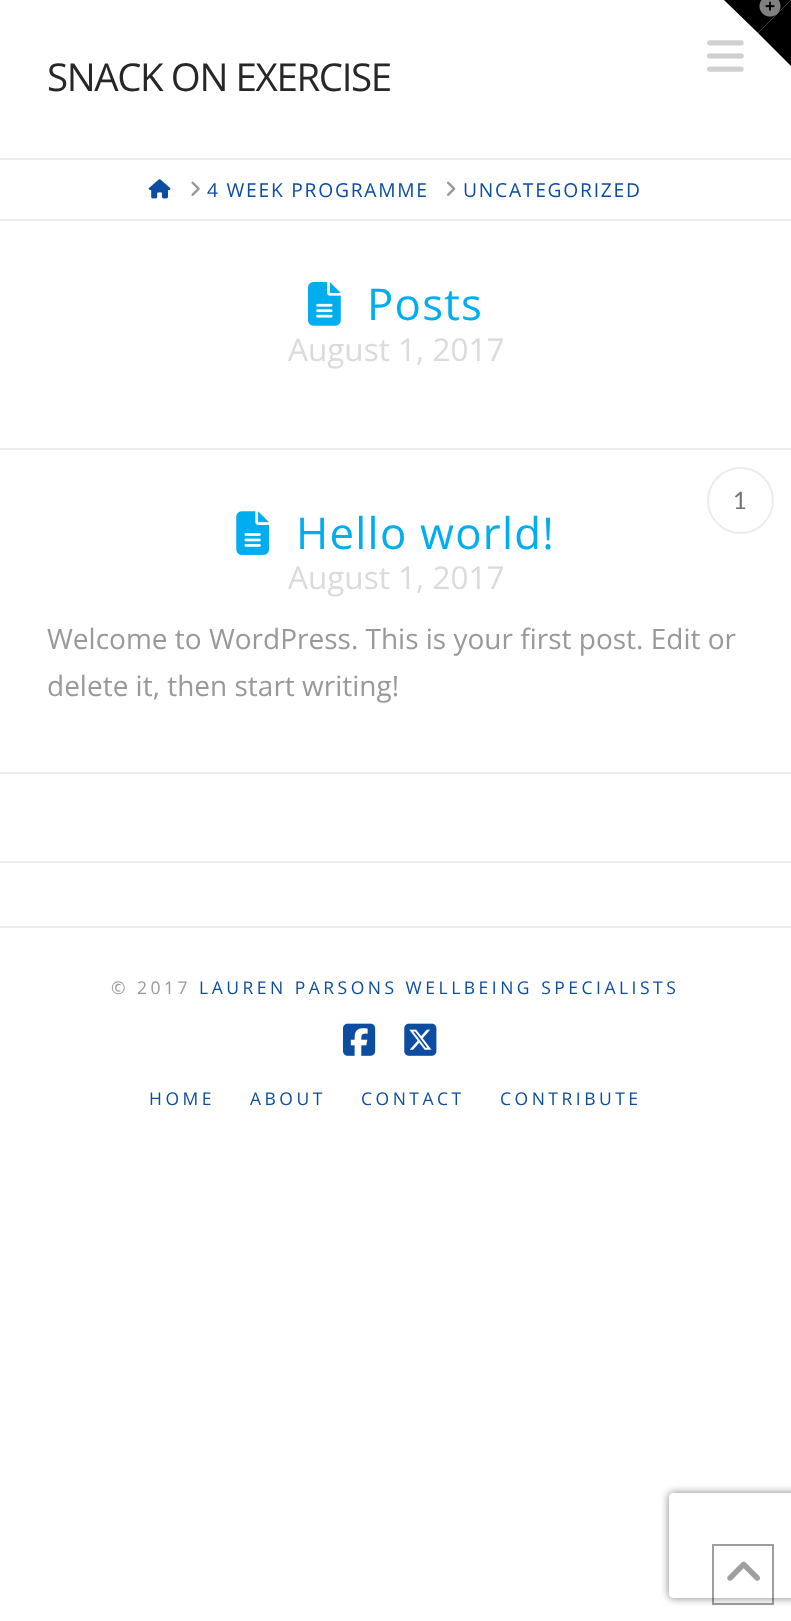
<!DOCTYPE html>
<meta charset="utf-8">
<style>body { margin: 0 } canvas { display: block }</style>
<canvas id="canvas" width="791" height="1621"></canvas>
<img id="img1" src="images/1.png" hidden>
<img id="img2" src="images/2.png" hidden>
<img id="img3" src="images/3.png" hidden>
<img id="img4" src="images/4.png" hidden>
<img id="img5" src="images/5.png" hidden>
<img id="img6" src="images/6.png" hidden>
<img id="img7" src="images/7.png" hidden>
<img id="img8" src="images/8.png" hidden>
<img id="img9" src="images/9.png" hidden>
<img id="img10" src="images/10.png" hidden>
<script>
window.onload = function () {
    const canvas = document.getElementById('canvas');
    const context = canvas.getContext('2d');
    context.miterLimit = 4;
    context.fontKerning = 'normal';

    context.fillStyle = 'rgb(255, 255, 255)';
    context.fillRect(0, 0, 791, 1621);
    context.fillStyle = 'rgb(0, 0, 0)';
    context.beginPath();
    context.moveTo(724, 0);
    context.lineTo(791, 0);
    context.lineTo(758, 33);
    context.closePath();
    context.fill();
    context.beginPath();
    context.moveTo(791, 0);
    context.lineTo(791, 66);
    context.lineTo(758, 33);
    context.closePath();
    context.fill();
    context.drawImage(document.getElementById('img1'), 759, 0, 22, 17);
    context.fillStyle = 'rgb(236, 236, 236)';
    context.fillRect(0, 158, 791, 2);
    context.drawImage(document.getElementById('img2'), 707, 40, 37, 32);
    context.fillRect(0, 219, 791, 2);
    context.drawImage(document.getElementById('img3'), 148, 179, 23, 20);
    context.drawImage(document.getElementById('img4'), 191, 181, 9, 15);
    context.drawImage(document.getElementById('img5'), 446, 181, 10, 15);
    context.drawImage(document.getElementById('img6'), 308, 282, 33, 44);
    context.fillRect(0, 448, 791, 2);
    context.fillRect(0, 772, 791, 2);
    context.beginPath();
    context.arc(740.5, 500.5, 32.5, 0, 2 * Math.PI);
    context.strokeStyle = 'rgb(236, 236, 236)';
    context.lineWidth = 2;
    context.stroke();
    context.drawImage(document.getElementById('img7'), 236, 511, 33, 44);
    context.fillRect(0, 861, 791, 2);
    context.fillRect(0, 926, 791, 2);
    context.drawImage(document.getElementById('img8'), 343, 1023, 33, 33);
    context.drawImage(document.getElementById('img9'), 404, 1023, 33, 33);
    context.save();
    context.beginPath();
    context.moveTo(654, 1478);
    context.lineTo(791, 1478);
    context.lineTo(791, 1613);
    context.lineTo(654, 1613);
    context.closePath();
    context.moveTo(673, 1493);
    context.lineTo(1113, 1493);
    context.bezierCurveTo(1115, 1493, 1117, 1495, 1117, 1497);
    context.lineTo(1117, 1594);
    context.bezierCurveTo(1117, 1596, 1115, 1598, 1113, 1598);
    context.lineTo(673, 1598);
    context.bezierCurveTo(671, 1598, 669, 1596, 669, 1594);
    context.lineTo(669, 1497);
    context.bezierCurveTo(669, 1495, 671, 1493, 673, 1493);
    context.closePath();
    context.clip('evenodd');
    context.fillStyle = 'rgb(128, 128, 128)';
    context.filter = 'blur(4.5px)';
    context.beginPath();
    context.roundRect(669, 1493, 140, 105, 4);
    context.fill();
    context.filter = 'none';
    context.restore();
    context.strokeStyle = 'rgba(0, 0, 0, 0.38)';
    context.strokeRect(713, 1545, 60, 59);
    context.drawImage(document.getElementById('img10'), 727, 1561, 33, 20);
    context.letterSpacing = '-1.4px';
    context.font = '38.5px Open Sans';
    context.fillStyle = 'rgb(39, 39, 39)';
    context.fillText('SNACK ON EXERCISE', 47, 91);
    context.letterSpacing = '1.75px';
    context.font = '19.25px Open Sans';
    context.fillStyle = 'rgb(12, 77, 162)';
    context.fillText('4 WEEK PROGRAMME', 207, 197);
    context.fillText('UNCATEGORIZED', 463, 197);
    context.letterSpacing = '1.25px';
    context.font = '43.75px Open Sans';
    context.fillStyle = 'rgb(0, 174, 239)';
    context.fillText('Posts', 367, 320);
    context.letterSpacing = '0px';
    context.font = '31.5px Open Sans';
    context.fillStyle = 'rgb(219, 219, 219)';
    context.fillText('August 1, 2017', 288, 361);
    context.font = '24px Lato';
    context.fillStyle = 'rgb(115, 115, 115)';
    context.fillText('1', 733, 509);
    context.letterSpacing = '1.25px';
    context.font = '43.75px Open Sans';
    context.fillStyle = 'rgb(0, 174, 239)';
    context.fillText('Hello world!', 296, 549);
    context.letterSpacing = '0px';
    context.font = '31.5px Open Sans';
    context.fillStyle = 'rgb(219, 219, 219)';
    context.fillText('August 1, 2017', 288, 589);
    context.font = '28px Open Sans';
    context.fillStyle = 'rgb(153, 153, 153)';
    context.fillText('Welcome to WordPress. This is your first post. Edit or', 47, 649);
    context.fillText('delete it, then start writing!', 47, 696);
    context.letterSpacing = '3.5px';
    context.font = '17.5px Open Sans';
    context.fillText('© 2017', 111, 994);
    context.fillStyle = 'rgb(12, 77, 162)';
    context.fillText('LAUREN PARSONS WELLBEING SPECIALISTS', 199, 994);
    context.fillText('HOME', 149, 1105);
    context.fillText('ABOUT', 250, 1105);
    context.fillText('CONTACT', 361, 1105);
    context.fillText('CONTRIBUTE', 500, 1105);
};
</script>
